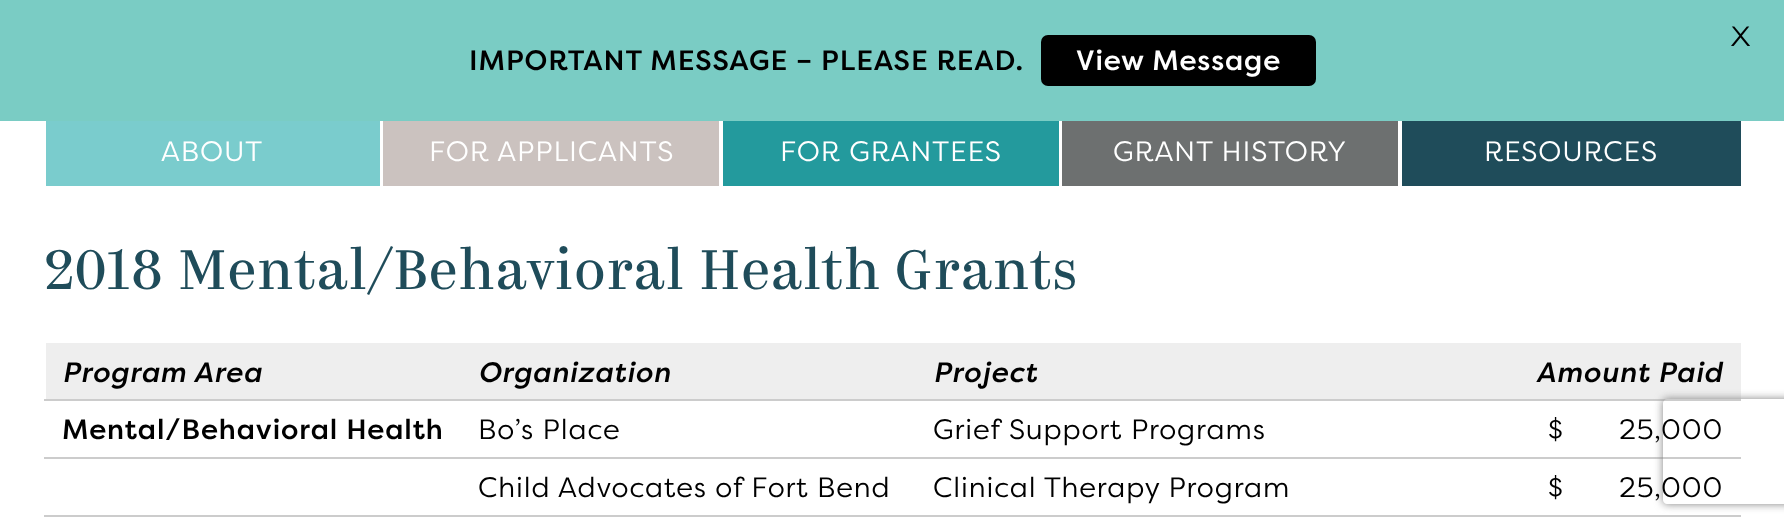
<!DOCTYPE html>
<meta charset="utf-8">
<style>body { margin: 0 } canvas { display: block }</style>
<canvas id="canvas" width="1784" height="528"></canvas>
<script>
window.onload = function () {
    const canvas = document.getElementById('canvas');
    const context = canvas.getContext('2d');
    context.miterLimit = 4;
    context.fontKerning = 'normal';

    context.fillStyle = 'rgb(255, 255, 255)';
    context.fillRect(0, 0, 1784, 528);
    context.fillStyle = 'rgb(122, 204, 196)';
    context.fillRect(0, 0, 1784, 121);
    context.fillStyle = 'rgb(0, 0, 0)';
    context.beginPath();
    context.roundRect(1041, 35, 275, 51, 7);
    context.fill();
    context.fillStyle = 'rgb(122, 204, 205)';
    context.fillRect(46, 121, 334, 65);
    context.fillStyle = 'rgb(203, 194, 191)';
    context.fillRect(383, 121, 336, 65);
    context.fillStyle = 'rgb(35, 154, 157)';
    context.fillRect(723, 121, 336, 65);
    context.fillStyle = 'rgb(109, 112, 112)';
    context.fillRect(1062, 121, 336, 65);
    context.fillStyle = 'rgb(31, 76, 90)';
    context.fillRect(1402, 121, 339, 65);
    context.fillStyle = 'rgb(238, 238, 238)';
    context.fillRect(46, 343, 1695, 56);
    context.fillStyle = 'rgb(204, 204, 204)';
    context.fillRect(44, 399, 1697, 2);
    context.fillRect(44, 457, 1697, 2);
    context.fillRect(44, 515, 1697, 2);
    context.save();
    context.beginPath();
    context.moveTo(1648, 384);
    context.lineTo(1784, 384);
    context.lineTo(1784, 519);
    context.lineTo(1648, 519);
    context.closePath();
    context.moveTo(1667, 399);
    context.lineTo(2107, 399);
    context.bezierCurveTo(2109, 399, 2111, 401, 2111, 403);
    context.lineTo(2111, 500);
    context.bezierCurveTo(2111, 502, 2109, 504, 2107, 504);
    context.lineTo(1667, 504);
    context.bezierCurveTo(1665, 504, 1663, 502, 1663, 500);
    context.lineTo(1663, 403);
    context.bezierCurveTo(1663, 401, 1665, 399, 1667, 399);
    context.closePath();
    context.clip('evenodd');
    context.fillStyle = 'rgb(128, 128, 128)';
    context.filter = 'blur(4.5px)';
    context.beginPath();
    context.roundRect(1663, 399, 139, 105, 4);
    context.fill();
    context.filter = 'none';
    context.restore();
    context.letterSpacing = '0.9px';
    context.font = '28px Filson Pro';
    context.fillStyle = 'rgb(0, 0, 0)';
    context.fillText('X', 1731, 46);
    context.font = '500 28px Filson Pro';
    context.fillText('IMPORTANT MESSAGE – PLEASE READ.', 469, 70);
    context.fillStyle = 'rgb(255, 255, 255)';
    context.fillText('View Message', 1076, 70);
    context.font = '28px Filson Pro';
    context.fillText('ABOUT', 161, 161);
    context.fillText('FOR APPLICANTS', 429, 161);
    context.fillText('FOR GRANTEES', 780, 161);
    context.fillText('GRANT HISTORY', 1113, 161);
    context.fillText('RESOURCES', 1484, 161);
    context.font = '56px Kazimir';
    context.fillStyle = 'rgb(31, 76, 90)';
    context.fillText('2018 Mental/Behavioral Health Grants', 45, 289);
    context.font = 'italic 500 28px Filson Pro';
    context.fillStyle = 'rgb(0, 0, 0)';
    context.fillText('Program Area', 62, 382);
    context.fillText('Organization', 478, 382);
    context.fillText('Project', 933, 382);
    context.fillText('Amount Paid', 1536, 382);
    context.font = '500 28px Filson Pro';
    context.fillText('Mental/Behavioral Health', 62, 439);
    context.font = '28px Filson Pro';
    context.fillText('Bo’s Place', 478, 439);
    context.fillText('Grief Support Programs', 933, 439);
    context.fillText('$', 1548, 439);
    context.fillText('25,000', 1619, 439);
    context.fillText('Child Advocates of Fort Bend', 478, 497);
    context.fillText('Clinical Therapy Program', 933, 497);
    context.fillText('$', 1548, 497);
    context.fillText('25,000', 1619, 497);
};
</script>
